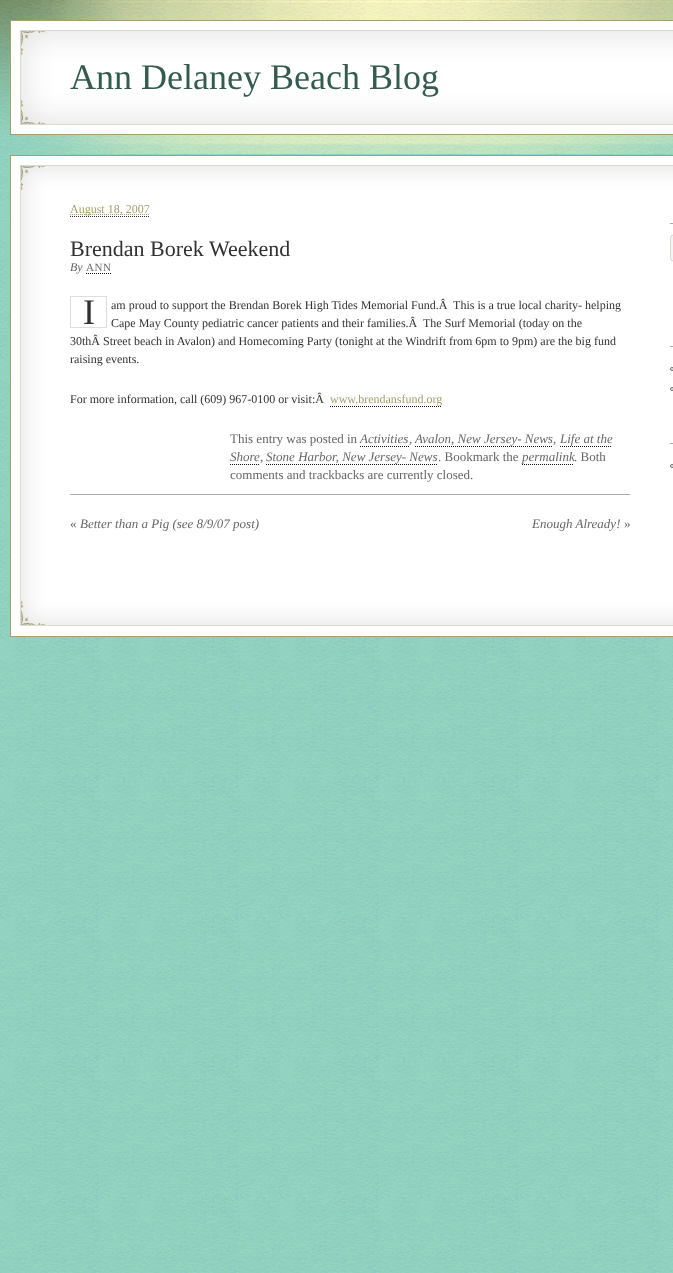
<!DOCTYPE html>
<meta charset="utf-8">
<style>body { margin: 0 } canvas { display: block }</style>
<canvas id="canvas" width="673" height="1273"></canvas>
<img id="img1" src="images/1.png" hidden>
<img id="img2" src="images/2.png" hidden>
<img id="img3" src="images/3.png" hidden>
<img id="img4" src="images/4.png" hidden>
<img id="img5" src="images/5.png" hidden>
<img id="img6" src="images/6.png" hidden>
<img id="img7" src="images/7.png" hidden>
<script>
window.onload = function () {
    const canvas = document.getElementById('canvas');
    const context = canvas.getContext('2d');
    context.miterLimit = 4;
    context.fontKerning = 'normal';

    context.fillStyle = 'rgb(255, 255, 255)';
    context.fillRect(0, 0, 673, 1273);
    context.drawImage(document.getElementById('img1'), 0, 222, 673, 1051);
    context.drawImage(document.getElementById('img2'), 0, 154, 673, 68);
    context.drawImage(document.getElementById('img3'), 0, 0, 673, 154);
    context.drawImage(document.getElementById('img4'), 10, 20, 663, 115);
    context.drawImage(document.getElementById('img5'), 10, 155, 663, 40);
    context.drawImage(document.getElementById('img6'), 10, 195, 663, 382);
    context.fillStyle = 'rgb(170, 170, 170)';
    context.fillRect(70, 494, 560, 1);
    context.beginPath();
    context.moveTo(70, 216.5);
    context.lineTo(150, 216.5);
    context.strokeStyle = 'rgb(51, 51, 51)';
    context.setLineDash([1, 1]);
    context.stroke();
    context.beginPath();
    context.moveTo(70, 214.5);
    context.lineTo(149.5, 214.5);
    context.strokeStyle = 'rgb(164, 159, 108)';
    context.stroke();
    context.beginPath();
    context.moveTo(86, 273.5);
    context.lineTo(111, 273.5);
    context.strokeStyle = 'rgb(17, 17, 17)';
    context.stroke();
    context.strokeStyle = 'rgb(221, 221, 221)';
    context.setLineDash([]);
    context.strokeRect(70.5, 296.5, 36, 31);
    context.beginPath();
    context.moveTo(330, 406.5);
    context.lineTo(442, 406.5);
    context.strokeStyle = 'rgb(17, 17, 17)';
    context.setLineDash([1, 1]);
    context.stroke();
    context.beginPath();
    context.moveTo(360, 446.5);
    context.lineTo(409, 446.5);
    context.stroke();
    context.beginPath();
    context.moveTo(415, 446.5);
    context.lineTo(553, 446.5);
    context.stroke();
    context.beginPath();
    context.moveTo(560, 446.5);
    context.lineTo(612, 446.5);
    context.stroke();
    context.beginPath();
    context.moveTo(230, 464.5);
    context.lineTo(260, 464.5);
    context.stroke();
    context.beginPath();
    context.moveTo(266, 464.5);
    context.lineTo(438, 464.5);
    context.stroke();
    context.beginPath();
    context.moveTo(522, 464.5);
    context.lineTo(574, 464.5);
    context.stroke();
    context.fillRect(670, 223, 3, 1);
    context.fillStyle = 'rgb(245, 245, 245)';
    context.beginPath();
    context.roundRect(670.5, 234.5, 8, 27, 4.5);
    context.fill();
    context.strokeStyle = 'rgb(219, 218, 206)';
    context.setLineDash([]);
    context.stroke();
    context.fillStyle = 'rgb(170, 170, 170)';
    context.fillRect(670, 346, 3, 1);
    context.beginPath();
    context.arc(672, 369, 1.5, 0, 2 * Math.PI);
    context.strokeStyle = 'rgb(102, 102, 102)';
    context.stroke();
    context.beginPath();
    context.arc(672, 389, 1.5, 0, 2 * Math.PI);
    context.stroke();
    context.fillRect(670, 443, 3, 1);
    context.beginPath();
    context.arc(672, 466, 1.5, 0, 2 * Math.PI);
    context.stroke();
    context.drawImage(document.getElementById('img7'), 10, 577, 663, 60);
    context.font = '36px Liberation Serif';
    context.fillStyle = 'rgb(51, 91, 79)';
    context.fillText('Ann Delaney Beach Blog', 70, 89);
    context.font = '12px Liberation Serif';
    context.fillStyle = 'rgb(164, 159, 108)';
    context.fillText('August 18, 2007', 70, 213);
    context.font = '22px Liberation Serif';
    context.fillStyle = 'rgb(49, 49, 49)';
    context.fillText('Brendan Borek Weekend', 70, 256);
    context.font = 'italic 12px Liberation Serif';
    context.fillStyle = 'rgb(102, 102, 102)';
    context.fillText('By', 70, 271);
    context.letterSpacing = '0.5px';
    context.font = '11px Liberation Serif';
    context.fillText('ANN', 86, 271);
    context.letterSpacing = '0px';
    context.font = '36px Liberation Serif';
    context.fillStyle = 'rgb(49, 49, 49)';
    context.fillText('I', 83, 324);
    context.font = '12px Liberation Serif';
    context.fillText('am proud to support the Brendan Borek High Tides Memorial Fund.Â  This is a true local charity- helping', 111, 309);
    context.fillText('Cape May County pediatric cancer patients and their families.Â  The Surf Memorial (today on the', 111, 327);
    context.fillText('30thÂ Street beach in Avalon) and Homecoming Party (tonight at the Windrift from 6pm to 9pm) are the big fund', 70, 345);
    context.fillText('raising events.', 70, 363);
    context.fillText('For more information, call (609) 967-0100 or visit:Â', 70, 403);
    context.fillStyle = 'rgb(164, 159, 108)';
    context.fillText('www.brendansfund.org', 330, 403);
    context.font = '13px Liberation Serif';
    context.fillStyle = 'rgb(102, 102, 102)';
    context.fillText('This entry was posted in', 230, 443);
    context.font = 'italic 13px Liberation Serif';
    context.fillText('Activities', 360, 443);
    context.font = '13px Liberation Serif';
    context.fillText(',', 409, 443);
    context.font = 'italic 13px Liberation Serif';
    context.fillText('Avalon, New Jersey- News', 415, 443);
    context.font = '13px Liberation Serif';
    context.fillText(',', 553, 443);
    context.font = 'italic 13px Liberation Serif';
    context.fillText('Life at the', 560, 443);
    context.fillText('Shore', 230, 461);
    context.font = '13px Liberation Serif';
    context.fillText(',', 260, 461);
    context.font = 'italic 13px Liberation Serif';
    context.fillText('Stone Harbor, New Jersey- News', 266, 461);
    context.font = '13px Liberation Serif';
    context.fillText('. Bookmark the', 438, 461);
    context.font = 'italic 13px Liberation Serif';
    context.fillText('permalink', 522, 461);
    context.font = '13px Liberation Serif';
    context.fillText('. Both', 574, 461);
    context.fillText('comments and trackbacks are currently closed.', 230, 479);
    context.fillText('«', 70, 528);
    context.font = 'italic 13px Liberation Serif';
    context.fillText('Better than a Pig (see 8/9/07 post)', 80, 528);
    context.fillText('Enough Already!', 532, 528);
    context.font = '13px Liberation Serif';
    context.fillText('»', 624, 528);
};
</script>
